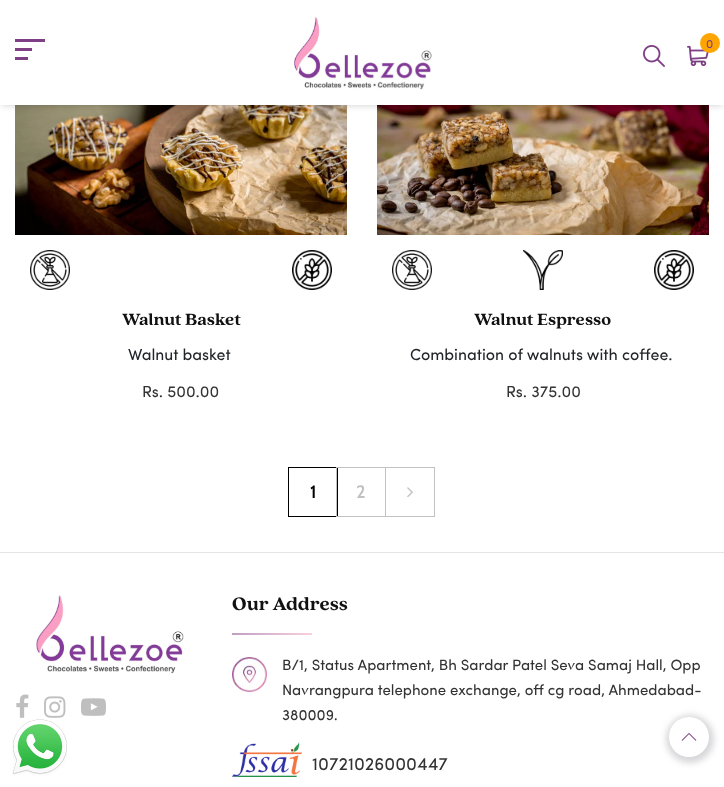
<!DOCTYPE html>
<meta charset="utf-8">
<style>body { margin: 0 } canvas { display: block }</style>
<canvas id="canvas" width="724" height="787"></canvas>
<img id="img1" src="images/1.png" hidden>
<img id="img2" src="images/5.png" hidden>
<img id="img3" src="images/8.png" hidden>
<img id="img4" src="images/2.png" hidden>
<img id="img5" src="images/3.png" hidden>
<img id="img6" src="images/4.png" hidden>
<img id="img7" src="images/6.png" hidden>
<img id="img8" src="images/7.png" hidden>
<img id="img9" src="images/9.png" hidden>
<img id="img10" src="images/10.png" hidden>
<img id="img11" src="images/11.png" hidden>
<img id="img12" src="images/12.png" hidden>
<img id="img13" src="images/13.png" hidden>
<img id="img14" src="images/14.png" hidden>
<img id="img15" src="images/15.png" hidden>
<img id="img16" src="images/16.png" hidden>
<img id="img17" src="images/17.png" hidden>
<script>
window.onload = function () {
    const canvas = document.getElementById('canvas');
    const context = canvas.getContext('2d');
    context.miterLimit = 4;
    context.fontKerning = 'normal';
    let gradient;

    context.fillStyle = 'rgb(255, 255, 255)';
    context.fillRect(0, 0, 724, 787);
    context.drawImage(document.getElementById('img1'), 12, 719, 55, 56);
    context.drawImage(document.getElementById('img2'), 15, 105, 332, 130);
    context.drawImage(document.getElementById('img3'), 377, 105, 332, 130);
    context.fillStyle = 'rgba(0, 0, 0, 0.2)';
    context.filter = 'blur(3.5px)';
    context.beginPath();
    context.rect(2, 4, 720, 101);
    context.fill();
    context.filter = 'none';
    context.fillStyle = 'rgb(255, 255, 255)';
    context.fillRect(0, 0, 724, 105);
    context.fillStyle = 'rgb(126, 63, 132)';
    context.fillRect(15, 39, 30, 3);
    context.fillRect(15, 48, 17, 3);
    context.fillRect(15, 57, 13, 3);
    context.drawImage(document.getElementById('img4'), 294, 17, 138, 73);
    context.drawImage(document.getElementById('img5'), 643, 45, 22, 22);
    context.drawImage(document.getElementById('img6'), 687, 45, 22, 22);
    context.fillStyle = 'rgb(255, 165, 0)';
    context.beginPath();
    context.arc(710, 43, 10, 0, 2 * Math.PI);
    context.fill();
    context.drawImage(document.getElementById('img7'), 30, 250, 40, 40);
    context.drawImage(document.getElementById('img8'), 292, 250, 40, 40);
    context.drawImage(document.getElementById('img7'), 392, 250, 40, 40);
    context.drawImage(document.getElementById('img9'), 523, 250, 40, 40);
    context.drawImage(document.getElementById('img8'), 654, 250, 40, 40);
    context.strokeStyle = 'rgb(0, 0, 0)';
    context.strokeRect(288.5, 467.5, 49, 49);
    context.strokeStyle = 'rgb(193, 193, 193)';
    context.strokeRect(336.5, 467.5, 49, 49);
    context.strokeRect(385.5, 467.5, 49, 49);
    context.drawImage(document.getElementById('img10'), 407, 487, 6, 10);
    context.fillStyle = 'rgb(229, 229, 229)';
    context.fillRect(0, 552, 724, 1);
    context.drawImage(document.getElementById('img11'), 36, 595, 148, 79);
    context.drawImage(document.getElementById('img12'), 16, 694, 13, 24);
    context.drawImage(document.getElementById('img13'), 44, 696, 22, 22);
    context.drawImage(document.getElementById('img14'), 81, 698, 25, 18);
    gradient = context.createLinearGradient(232, 634, 312, 634);
    gradient.addColorStop(0, 'rgb(191, 159, 194)');
    gradient.addColorStop(1, 'rgb(250, 208, 223)');
    context.fillStyle = gradient;
    context.fillRect(232, 633, 80, 2);
    context.drawImage(document.getElementById('img15'), 232, 657, 35, 35);
    context.drawImage(document.getElementById('img16'), 232, 742, 70, 35);
    context.fillStyle = 'rgba(53, 57, 68, 0.2)';
    context.filter = 'blur(3px)';
    context.beginPath();
    context.roundRect(666, 715, 48, 48, 24);
    context.fill();
    context.filter = 'none';
    context.fillStyle = 'rgb(255, 255, 255)';
    context.beginPath();
    context.arc(689, 737, 20, 0, 2 * Math.PI);
    context.fill();
    context.drawImage(document.getElementById('img17'), 681, 733, 16, 8);
    context.font = '12px Sofia';
    context.fillStyle = 'rgb(126, 63, 132)';
    context.fillText('0', 706, 48);
    context.font = '800 18px "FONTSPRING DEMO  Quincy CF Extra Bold"';
    context.fillStyle = 'rgb(17, 17, 17)';
    context.fillText('Walnut Basket', 122, 325);
    context.font = '16px Sofia';
    context.fillStyle = 'rgb(33, 37, 41)';
    context.fillText('Walnut basket', 128, 360);
    context.fillStyle = 'rgb(51, 51, 51)';
    context.fillText('Rs. 500.00', 142, 397);
    context.font = '800 18px "FONTSPRING DEMO  Quincy CF Extra Bold"';
    context.fillStyle = 'rgb(17, 17, 17)';
    context.fillText('Walnut Espresso', 474, 325);
    context.font = '16px Sofia';
    context.fillStyle = 'rgb(33, 37, 41)';
    context.fillText('Combination of walnuts with coffee.', 410, 360);
    context.fillStyle = 'rgb(51, 51, 51)';
    context.fillText('Rs. 375.00', 506, 397);
    context.font = '600 18px Cabin';
    context.fillStyle = 'rgb(0, 0, 0)';
    context.fillText('1', 310, 498);
    context.fillStyle = 'rgb(193, 193, 193)';
    context.fillText('2', 356, 498);
    context.font = '800 20px "FONTSPRING DEMO  Quincy CF Extra Bold"';
    context.fillStyle = 'rgb(17, 17, 17)';
    context.fillText('Our Address', 232, 610);
    context.font = '15px Sofia';
    context.fillStyle = 'rgb(51, 51, 51)';
    context.fillText('B/1, Status Apartment, Bh Sardar Patel Seva Samaj Hall, Opp', 282, 670);
    context.fillText('Navrangpura telephone exchange, off cg road, Ahmedabad-', 282, 695);
    context.fillText('380009.', 282, 720);
    context.font = '18px Sofia';
    context.fillText('10721026000447', 312, 770);
};
</script>
